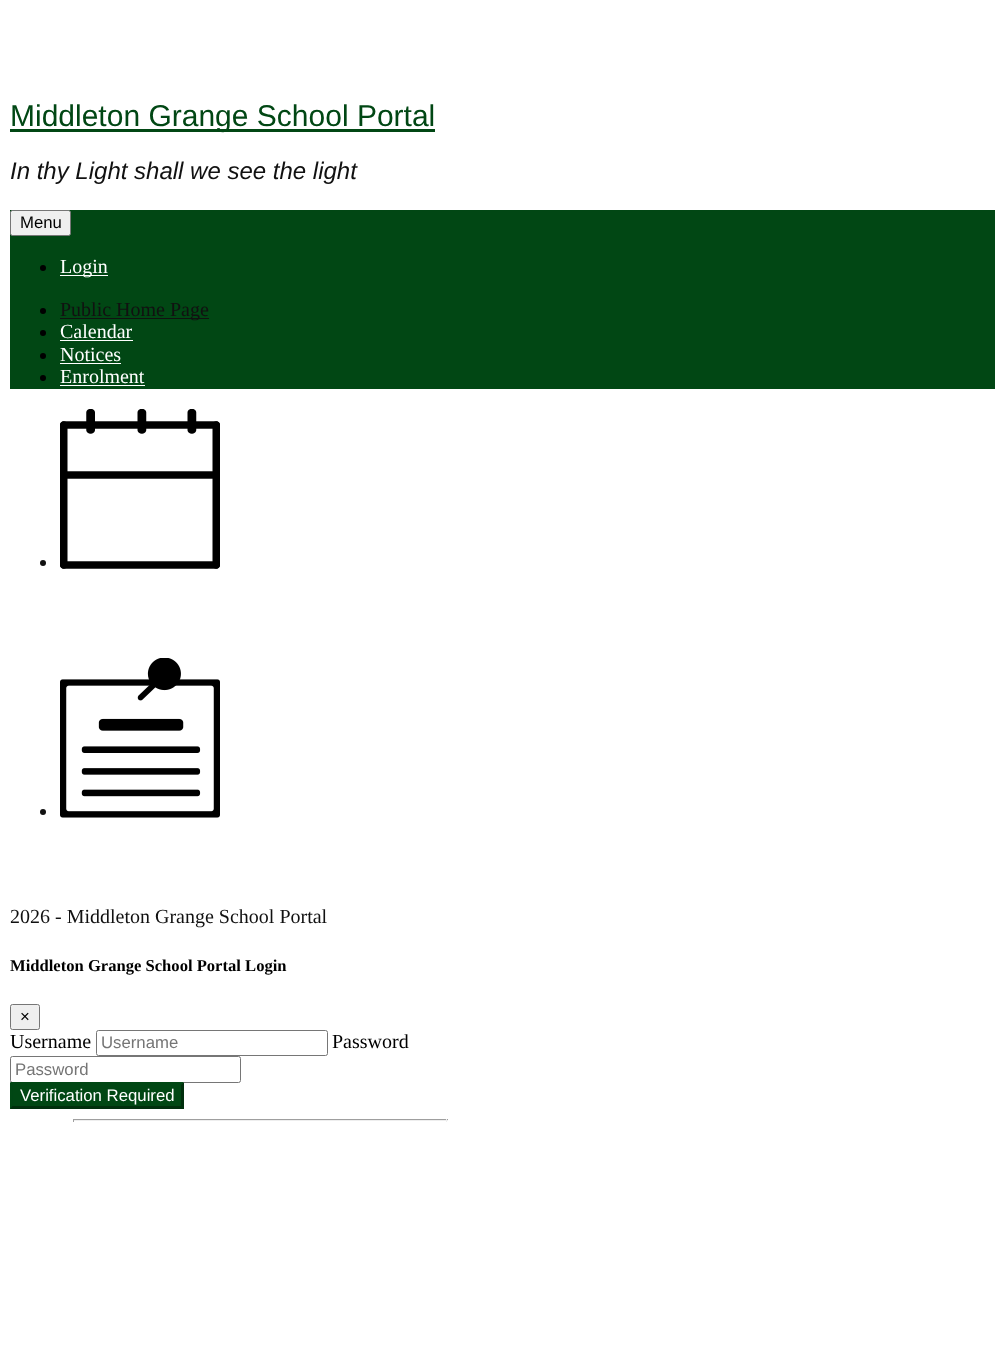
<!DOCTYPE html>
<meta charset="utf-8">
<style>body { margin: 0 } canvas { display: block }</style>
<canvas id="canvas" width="1004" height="1365"></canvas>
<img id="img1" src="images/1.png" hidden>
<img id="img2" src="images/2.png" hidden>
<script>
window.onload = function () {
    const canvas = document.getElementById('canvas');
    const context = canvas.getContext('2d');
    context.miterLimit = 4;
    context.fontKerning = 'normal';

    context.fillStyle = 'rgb(255, 255, 255)';
    context.fillRect(0, 0, 1004, 1365);
    context.fillStyle = 'rgb(1, 71, 20)';
    context.fillRect(10, 129, 425, 3);
    context.fillRect(10, 210, 985, 179);
    context.fillStyle = 'rgb(239, 239, 239)';
    context.beginPath();
    context.roundRect(10.5, 210.5, 60, 25, 2);
    context.fill();
    context.strokeStyle = 'rgb(118, 118, 118)';
    context.stroke();
    context.fillStyle = 'rgb(0, 0, 0)';
    context.beginPath();
    context.arc(43, 268, 3, 0, 2 * Math.PI);
    context.fill();
    context.fillStyle = 'rgb(255, 255, 255)';
    context.fillRect(60, 275, 48, 1);
    context.fillStyle = 'rgb(0, 0, 0)';
    context.beginPath();
    context.arc(43, 311, 3, 0, 2 * Math.PI);
    context.fill();
    context.fillStyle = 'rgb(17, 17, 17)';
    context.fillRect(60, 318, 149, 1);
    context.fillStyle = 'rgb(0, 0, 0)';
    context.beginPath();
    context.arc(43, 333, 3, 0, 2 * Math.PI);
    context.fill();
    context.fillStyle = 'rgb(255, 255, 255)';
    context.fillRect(60, 340, 73, 1);
    context.fillStyle = 'rgb(0, 0, 0)';
    context.beginPath();
    context.arc(43, 356, 3, 0, 2 * Math.PI);
    context.fill();
    context.fillStyle = 'rgb(255, 255, 255)';
    context.fillRect(60, 363, 61, 1);
    context.fillStyle = 'rgb(0, 0, 0)';
    context.beginPath();
    context.arc(43, 378, 3, 0, 2 * Math.PI);
    context.fill();
    context.fillStyle = 'rgb(255, 255, 255)';
    context.fillRect(60, 385, 85, 1);
    context.fillStyle = 'rgb(17, 17, 17)';
    context.beginPath();
    context.arc(43, 563, 3, 0, 2 * Math.PI);
    context.fill();
    context.drawImage(document.getElementById('img1'), 60, 409, 160, 160);
    context.beginPath();
    context.arc(43, 812, 3, 0, 2 * Math.PI);
    context.fill();
    context.drawImage(document.getElementById('img2'), 60, 658, 160, 160);
    context.fillStyle = 'rgb(239, 239, 239)';
    context.beginPath();
    context.roundRect(10.5, 1004.5, 29, 25, 2);
    context.fill();
    context.stroke();
    context.beginPath();
    context.roundRect(96.5, 1030.5, 231, 25, 2);
    context.stroke();
    context.beginPath();
    context.roundRect(10.5, 1056.5, 230, 26, 2);
    context.stroke();
    context.fillStyle = 'rgb(1, 71, 20)';
    context.fillRect(10, 1083, 174, 26);
    context.beginPath();
    context.moveTo(10, 1082);
    context.lineTo(184, 1082);
    context.lineTo(181, 1085);
    context.lineTo(12, 1085);
    context.closePath();
    context.fill();
    context.fillStyle = 'rgb(1, 47, 13)';
    context.beginPath();
    context.moveTo(184, 1082.5);
    context.lineTo(184, 1109);
    context.lineTo(181, 1106);
    context.lineTo(181, 1085);
    context.closePath();
    context.fill();
    context.beginPath();
    context.moveTo(184, 1109);
    context.lineTo(10, 1109);
    context.lineTo(12, 1106);
    context.lineTo(181, 1106);
    context.closePath();
    context.fill();
    context.fillStyle = 'rgb(1, 71, 20)';
    context.beginPath();
    context.moveTo(10, 1109);
    context.lineTo(10, 1082.5);
    context.lineTo(12.5, 1085);
    context.lineTo(12.5, 1106);
    context.closePath();
    context.fill();
    context.fillStyle = 'rgb(159, 159, 159)';
    context.fillRect(73, 1119, 375, 1);
    context.fillStyle = 'rgb(238, 238, 238)';
    context.fillRect(446, 1119, 1, 3);
    context.fillRect(73, 1120, 375, 1);
    context.fillStyle = 'rgb(159, 159, 159)';
    context.fillRect(73, 1119, 1, 3);
    context.font = '30px Liberation Sans';
    context.fillStyle = 'rgb(1, 71, 20)';
    context.fillText('Middleton Grange School Portal', 10, 126);
    context.font = 'italic 24px Liberation Sans';
    context.fillStyle = 'rgb(17, 17, 17)';
    context.fillText('In thy Light shall we see the light', 10, 179);
    context.font = '16.75px Liberation Sans';
    context.fillStyle = 'rgb(0, 0, 0)';
    context.fillText('Menu', 20, 228);
    context.font = '20px Liberation Serif';
    context.fillStyle = 'rgb(255, 255, 255)';
    context.fillText('Login', 60, 273);
    context.fillStyle = 'rgb(17, 17, 17)';
    context.fillText('Public Home Page', 60, 316);
    context.fillStyle = 'rgb(255, 255, 255)';
    context.fillText('Calendar', 60, 338);
    context.fillText('Notices', 60, 361);
    context.fillText('Enrolment', 60, 383);
    context.fillStyle = 'rgb(17, 17, 17)';
    context.fillText('2026 - Middleton Grange School Portal', 10, 923);
    context.font = 'bold 16.6px Liberation Serif';
    context.fillStyle = 'rgb(0, 0, 0)';
    context.fillText('Middleton Grange School Portal Login', 10, 971);
    context.font = '16.75px Liberation Sans';
    context.fillText('×', 20, 1022);
    context.font = '20px Liberation Serif';
    context.fillText('Username', 10, 1048);
    context.font = '16.75px Liberation Sans';
    context.fillStyle = 'rgb(117, 117, 117)';
    context.fillText('Username', 101, 1048);
    context.font = '20px Liberation Serif';
    context.fillStyle = 'rgb(0, 0, 0)';
    context.fillText('Password', 332, 1048);
    context.font = '16.75px Liberation Sans';
    context.fillStyle = 'rgb(117, 117, 117)';
    context.fillText('Password', 15, 1075);
    context.fillStyle = 'rgb(255, 255, 255)';
    context.fillText('Verification Required', 20, 1101);
};
</script>
